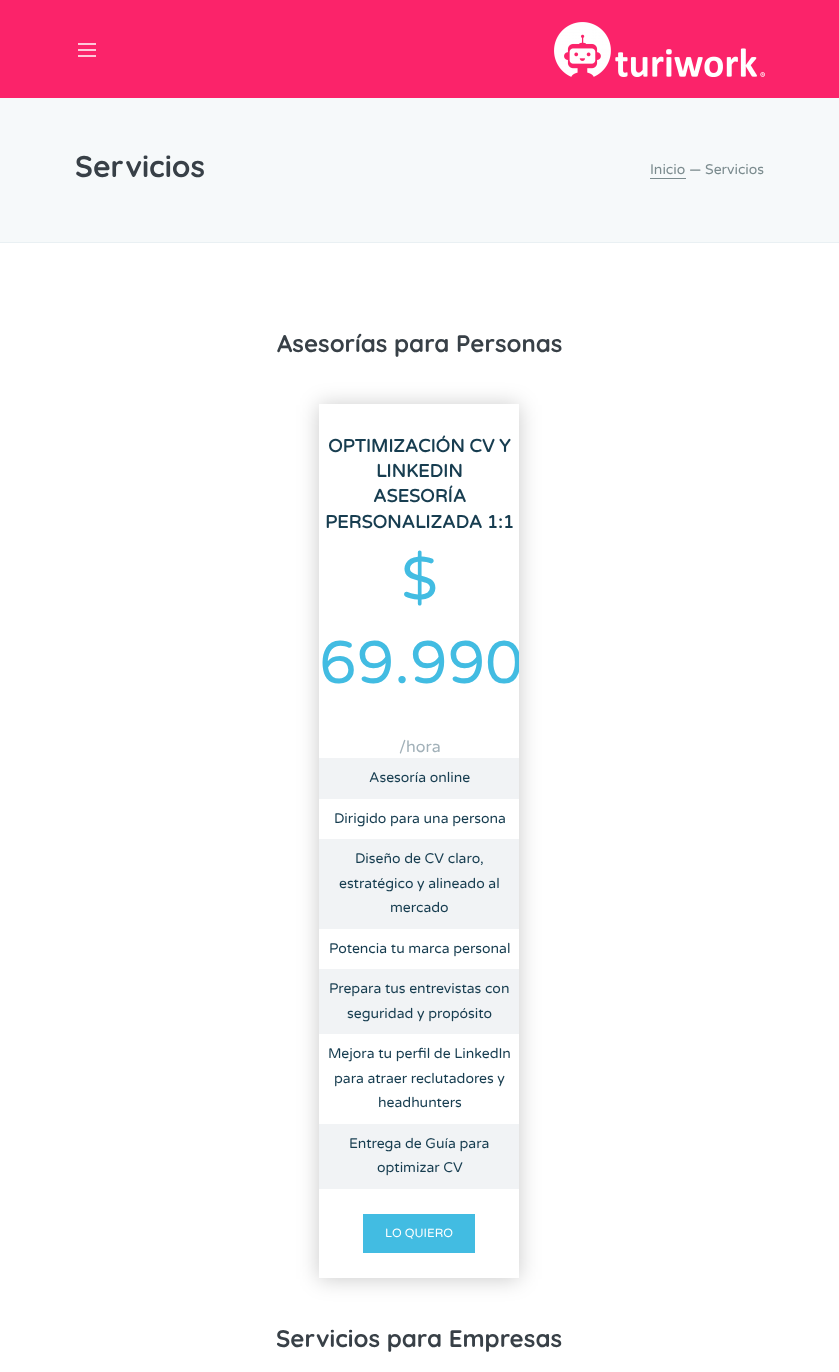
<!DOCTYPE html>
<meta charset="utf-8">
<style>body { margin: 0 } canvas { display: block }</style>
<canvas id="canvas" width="839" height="1372"></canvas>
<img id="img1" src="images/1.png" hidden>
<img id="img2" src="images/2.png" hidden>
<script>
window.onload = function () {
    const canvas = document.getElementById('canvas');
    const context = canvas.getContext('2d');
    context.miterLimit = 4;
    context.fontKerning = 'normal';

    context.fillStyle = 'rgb(255, 255, 255)';
    context.fillRect(0, 0, 839, 1372);
    context.fillStyle = 'rgb(246, 249, 250)';
    context.fillRect(0, 98, 839, 144);
    context.fillStyle = 'rgba(0, 65, 94, 0.2)';
    context.filter = 'blur(0.5px)';
    context.beginPath();
    context.rect(0, 0, 839, 98);
    context.fill();
    context.filter = 'none';
    context.fillStyle = 'rgb(251, 35, 106)';
    context.fillRect(0, 0, 839, 98);
    context.drawImage(document.getElementById('img1'), 78, 43, 18, 14);
    context.drawImage(document.getElementById('img2'), 554, 22, 211, 55);
    context.fillStyle = 'rgb(233, 240, 243)';
    context.fillRect(0, 242, 839, 1);
    context.fillStyle = 'rgb(123, 139, 142)';
    context.fillRect(650, 178, 36, 1);
    context.save();
    context.beginPath();
    context.moveTo(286, 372);
    context.lineTo(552, 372);
    context.lineTo(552, 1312);
    context.lineTo(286, 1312);
    context.closePath();
    context.moveTo(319, 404);
    context.lineTo(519, 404);
    context.lineTo(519, 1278);
    context.lineTo(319, 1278);
    context.closePath();
    context.clip('evenodd');
    context.fillStyle = 'rgba(0, 0, 0, 0.21)';
    context.filter = 'blur(10.5px)';
    context.beginPath();
    context.rect(319, 405, 200, 874);
    context.fill();
    context.filter = 'none';
    context.restore();
    context.fillStyle = 'rgb(241, 243, 245)';
    context.fillRect(319, 758, 200, 41);
    context.fillRect(319, 839, 200, 90);
    context.fillRect(319, 969, 200, 65);
    context.fillRect(319, 1124, 200, 65);
    context.fillStyle = 'rgb(66, 188, 226)';
    context.fillRect(363, 1214, 112, 39);
    context.font = 'bold 30px Quicksand';
    context.fillStyle = 'rgb(56, 64, 71)';
    context.fillText('Servicios', 75, 177);
    context.font = '14px Varela Round';
    context.fillStyle = 'rgb(123, 139, 142)';
    context.fillText('Inicio — Servicios', 650, 174);
    context.font = 'bold 24px Quicksand';
    context.fillStyle = 'rgb(56, 64, 71)';
    context.fillText('Asesorías para Personas', 277, 352);
    context.font = 'bold 18px Varela Round';
    context.fillStyle = 'rgb(23, 61, 80)';
    context.fillText('OPTIMIZACIÓN CV Y', 328, 452);
    context.fillText('LINKEDIN', 376, 477);
    context.fillText('ASESORÍA', 373, 502);
    context.fillText('PERSONALIZADA 1:1', 325, 528);
    context.font = '60px Varela Round';
    context.fillStyle = 'rgb(66, 188, 226)';
    context.fillText('$', 401, 599);
    context.save();
    context.beginPath();
    context.rect(319, 404, 200, 874);
    context.clip();
    context.fillText('69.990', 319, 683);
    context.restore();
    context.font = '16px Varela Round';
    context.fillStyle = 'rgb(162, 177, 185)';
    context.fillText('/hora', 399, 752);
    context.font = '14px Varela Round';
    context.fillStyle = 'rgb(23, 61, 80)';
    context.fillText('Asesoría online', 369, 782);
    context.fillText('Dirigido para una persona', 334, 823);
    context.fillText('Diseño de CV claro,', 355, 863);
    context.fillText('estratégico y alineado al', 339, 888);
    context.fillText('mercado', 390, 912);
    context.fillText('Potencia tu marca personal', 329, 953);
    context.fillText('Prepara tus entrevistas con', 329, 993);
    context.fillText('seguridad y propósito', 347, 1018);
    context.fillText('Mejora tu perfil de LinkedIn', 328, 1058);
    context.fillText('para atraer reclutadores y', 334, 1083);
    context.fillText('headhunters', 378, 1107);
    context.fillText('Entrega de Guía para', 349, 1148);
    context.fillText('optimizar CV', 377, 1172);
    context.font = '12px Varela Round';
    context.fillStyle = 'rgb(255, 255, 255)';
    context.fillText('LO QUIERO', 385, 1237);
    context.font = 'bold 24px Quicksand';
    context.fillStyle = 'rgb(56, 64, 71)';
    context.fillText('Servicios para Empresas', 276, 1347);
};
</script>
